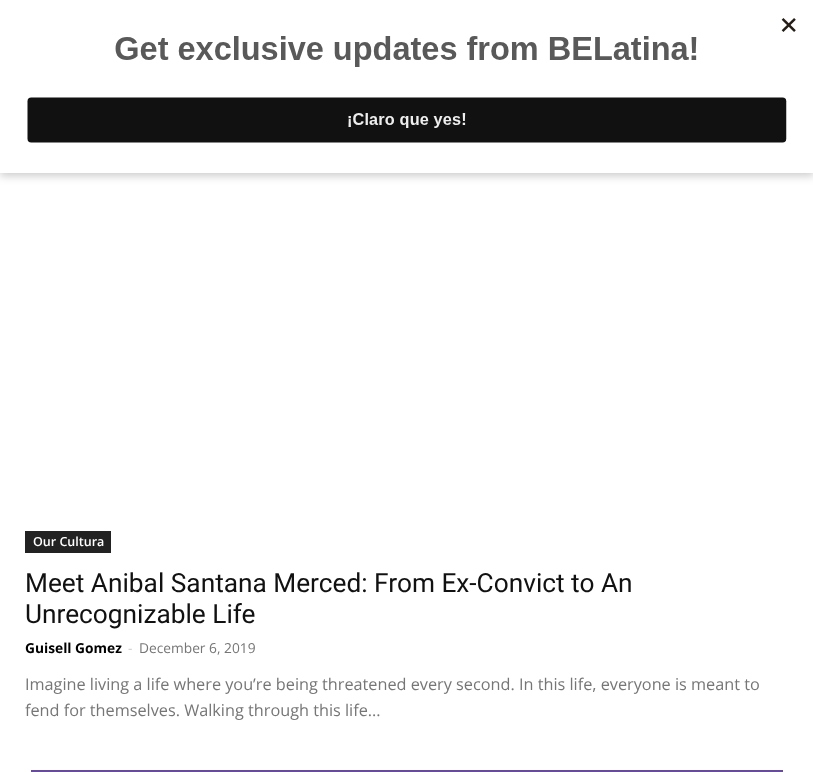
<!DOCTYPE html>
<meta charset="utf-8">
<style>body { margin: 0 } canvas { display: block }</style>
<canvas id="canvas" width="813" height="772"></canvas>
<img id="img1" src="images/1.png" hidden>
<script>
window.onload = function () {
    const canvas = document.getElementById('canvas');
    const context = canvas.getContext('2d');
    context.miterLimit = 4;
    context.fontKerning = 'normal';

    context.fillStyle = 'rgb(255, 255, 255)';
    context.fillRect(0, 0, 813, 772);
    context.fillStyle = 'rgba(0, 0, 0, 0.2)';
    context.filter = 'blur(4px)';
    context.beginPath();
    context.rect(0, 4, 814, 172);
    context.fill();
    context.filter = 'none';
    context.fillStyle = 'rgb(255, 255, 255)';
    context.fillRect(0, 0, 813, 173);
    context.drawImage(document.getElementById('img1'), 27, 18, 769, 125);
    context.fillStyle = 'rgb(34, 34, 34)';
    context.fillRect(25, 531, 86, 22);
    context.fillStyle = 'rgb(103, 76, 155)';
    context.fillRect(31, 770, 752, 2);
    context.font = '600 12.5px Open Sans';
    context.fillStyle = 'rgb(255, 255, 255)';
    context.fillText('Our Cultura', 33, 546);
    context.font = '26.25px Roboto';
    context.fillStyle = 'rgb(17, 17, 17)';
    context.fillText('Meet Anibal Santana Merced: From Ex-Convict to An', 25, 592);
    context.fillText('Unrecognizable Life', 25, 623);
    context.font = 'bold 13.75px Open Sans';
    context.fillStyle = 'rgb(0, 0, 0)';
    context.fillText('Guisell Gomez', 25, 653);
    context.font = '13.75px Open Sans';
    context.fillStyle = 'rgb(204, 204, 204)';
    context.fillText('-', 128, 653);
    context.fillStyle = 'rgb(118, 118, 118)';
    context.fillText('December 6, 2019', 139, 653);
    context.font = '16.25px Open Sans';
    context.fillText('Imagine living a life where you’re being threatened every second. In this life, everyone is meant to', 25, 690);
    context.fillText('fend for themselves. Walking through this life...', 25, 716);
};
</script>
